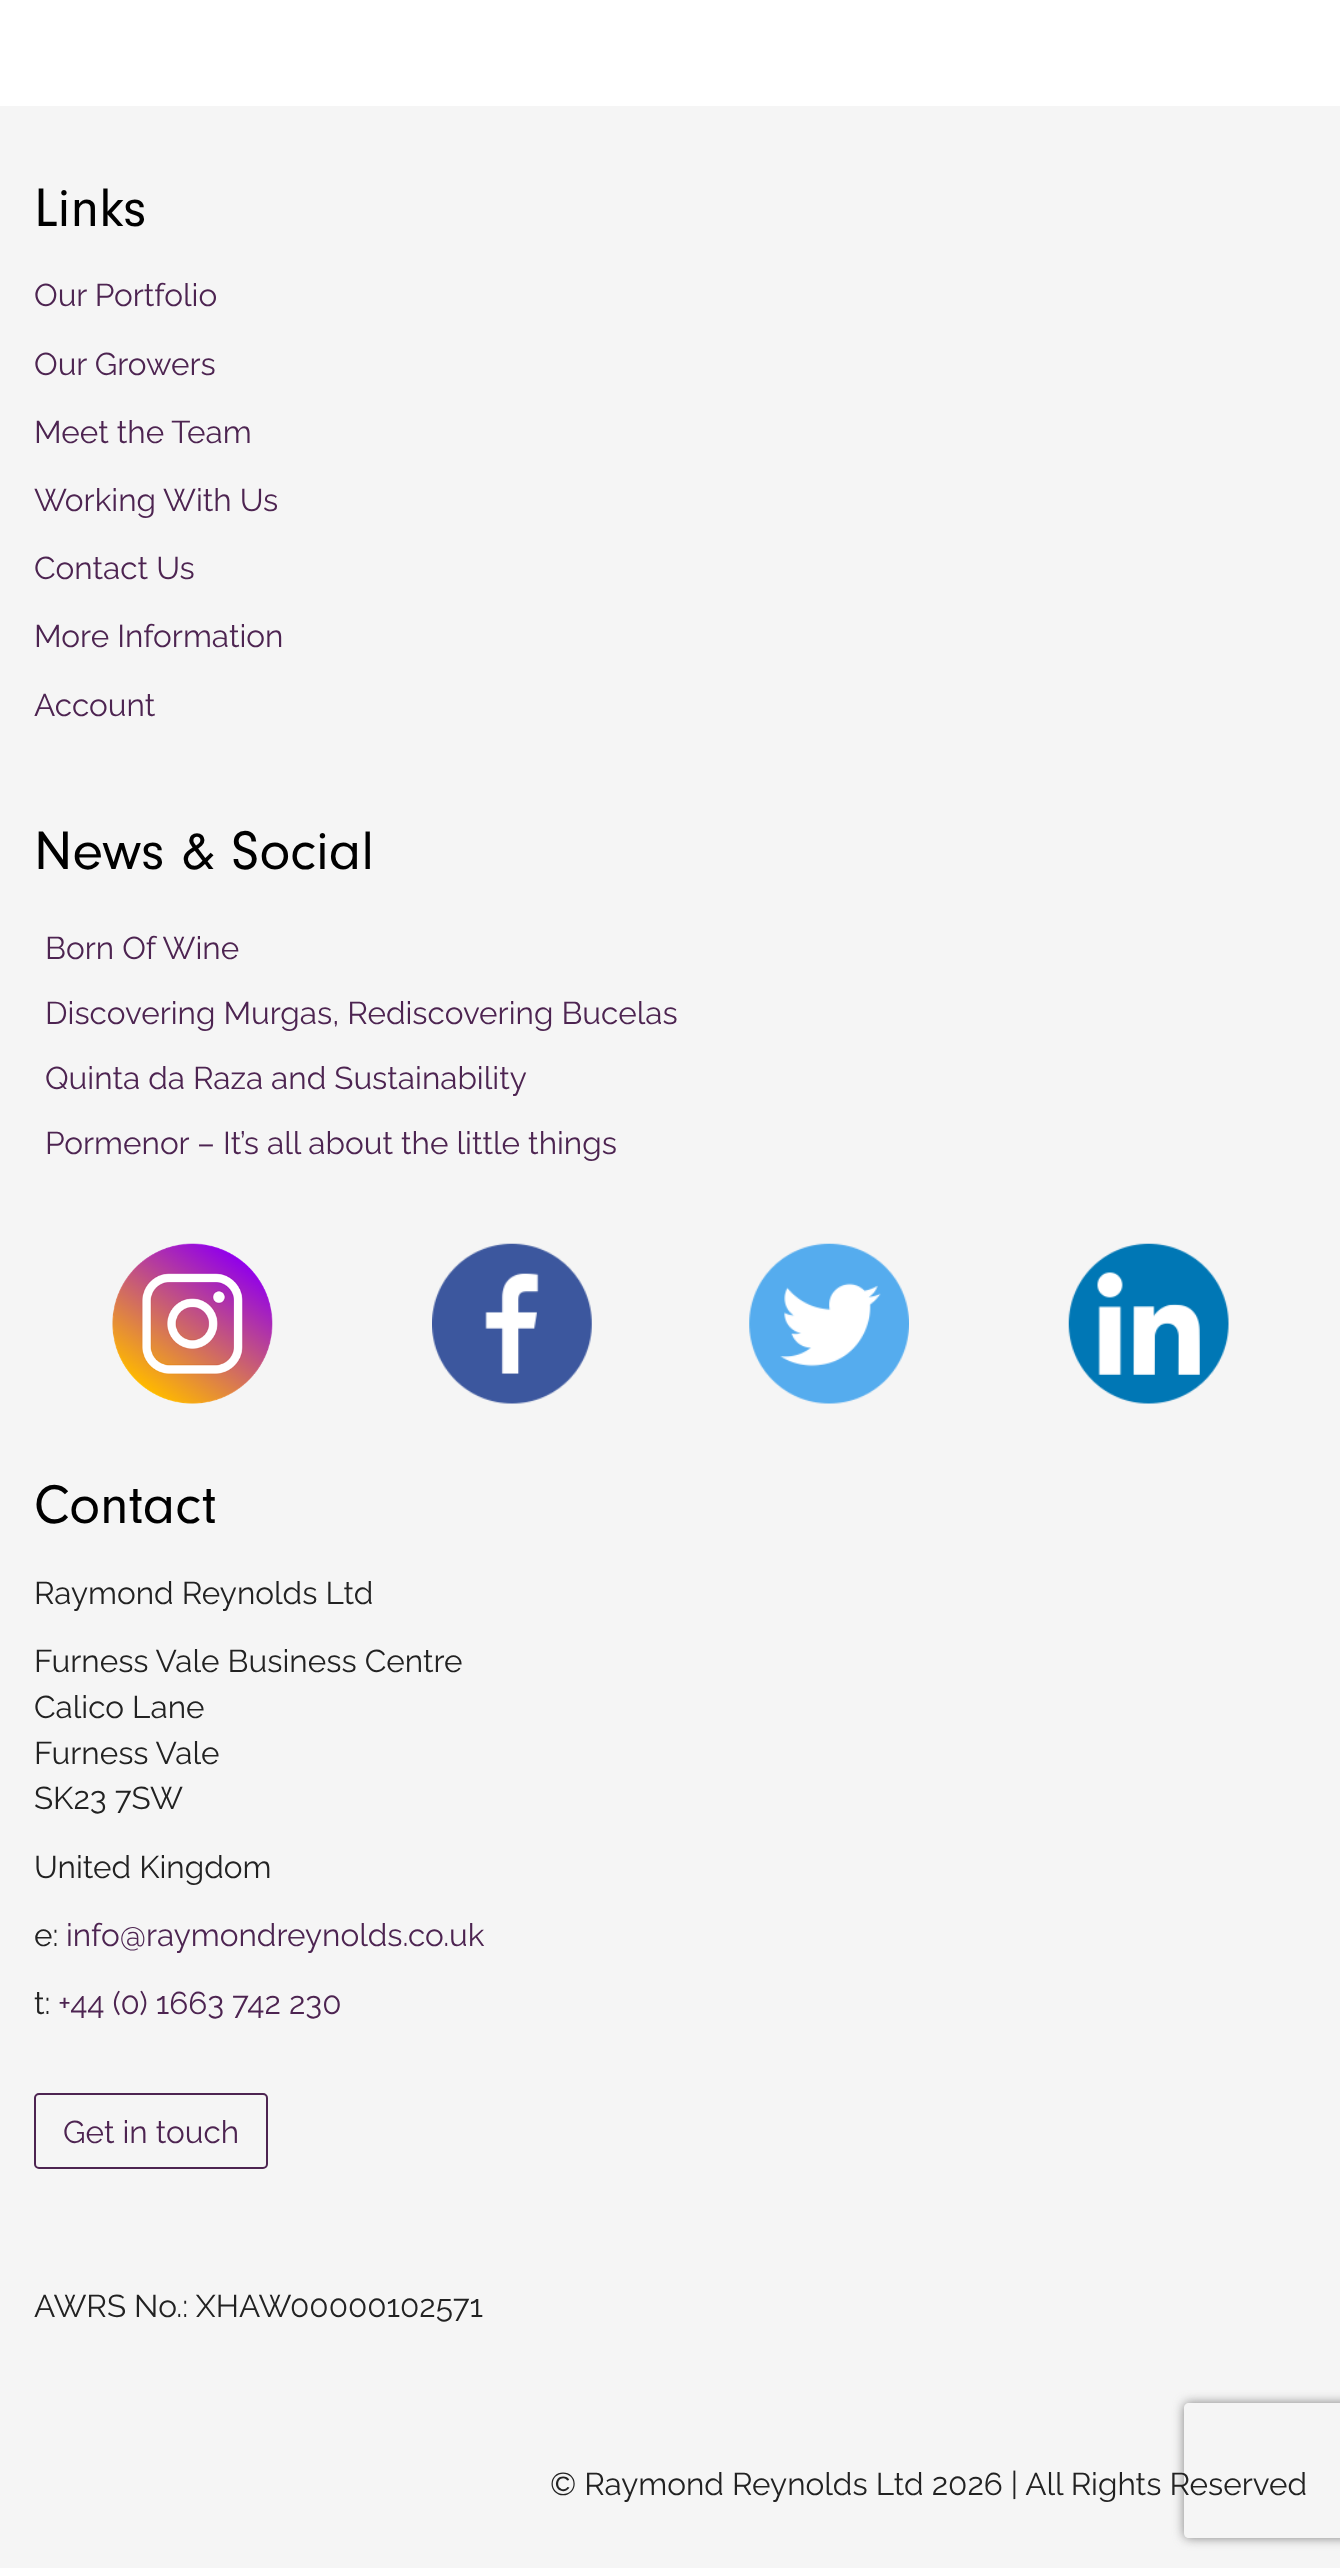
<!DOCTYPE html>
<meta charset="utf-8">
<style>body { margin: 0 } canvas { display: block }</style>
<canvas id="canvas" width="1340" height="2568"></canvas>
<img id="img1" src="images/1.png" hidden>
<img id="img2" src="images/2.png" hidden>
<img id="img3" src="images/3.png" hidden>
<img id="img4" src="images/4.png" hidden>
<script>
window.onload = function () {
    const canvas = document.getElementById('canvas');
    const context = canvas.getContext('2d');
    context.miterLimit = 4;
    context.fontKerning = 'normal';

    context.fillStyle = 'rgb(255, 255, 255)';
    context.fillRect(0, 0, 1340, 2568);
    context.fillStyle = 'rgb(245, 245, 245)';
    context.fillRect(0, 106, 1340, 2462);
    context.drawImage(document.getElementById('img1'), 112, 1243, 161, 161);
    context.drawImage(document.getElementById('img2'), 432, 1243, 160, 161);
    context.drawImage(document.getElementById('img3'), 749, 1243, 160, 161);
    context.drawImage(document.getElementById('img4'), 1068, 1243, 161, 161);
    context.beginPath();
    context.roundRect(35, 2094, 232, 74, 4);
    context.strokeStyle = 'rgb(77, 36, 81)';
    context.lineWidth = 2;
    context.stroke();
    context.save();
    context.beginPath();
    context.moveTo(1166, 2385);
    context.lineTo(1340, 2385);
    context.lineTo(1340, 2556);
    context.lineTo(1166, 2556);
    context.closePath();
    context.moveTo(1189, 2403);
    context.lineTo(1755, 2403);
    context.bezierCurveTo(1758, 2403, 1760, 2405, 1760, 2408);
    context.lineTo(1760, 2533);
    context.bezierCurveTo(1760, 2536, 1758, 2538, 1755, 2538);
    context.lineTo(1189, 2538);
    context.bezierCurveTo(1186, 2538, 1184, 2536, 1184, 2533);
    context.lineTo(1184, 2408);
    context.bezierCurveTo(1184, 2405, 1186, 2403, 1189, 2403);
    context.closePath();
    context.clip('evenodd');
    context.fillStyle = 'rgb(128, 128, 128)';
    context.filter = 'blur(5.5px)';
    context.beginPath();
    context.roundRect(1184, 2403, 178, 135, 5);
    context.fill();
    context.filter = 'none';
    context.restore();
    context.font = '56.25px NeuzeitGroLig';
    context.fillStyle = 'rgb(0, 0, 0)';
    context.fillText('Links', 34, 226);
    context.font = '31.5px Raleway';
    context.fillStyle = 'rgb(77, 36, 81)';
    context.fillText('Our Portfolio', 34, 306);
    context.fillText('Our Growers', 34, 375);
    context.fillText('Meet the Team', 34, 443);
    context.fillText('Working With Us', 34, 511);
    context.fillText('Contact Us', 34, 579);
    context.fillText('More Information', 34, 647);
    context.fillText('Account', 34, 716);
    context.font = '56.25px NeuzeitGroLig';
    context.fillStyle = 'rgb(0, 0, 0)';
    context.fillText('News & Social', 34, 869);
    context.font = '31.5px Raleway';
    context.fillStyle = 'rgb(77, 36, 81)';
    context.fillText('Born Of Wine', 45, 959);
    context.fillText('Discovering Murgas, Rediscovering Bucelas', 45, 1024);
    context.fillText('Quinta da Raza and Sustainability', 45, 1089);
    context.fillText('Pormenor – It’s all about the little things', 45, 1154);
    context.font = '56.25px NeuzeitGroLig';
    context.fillStyle = 'rgb(0, 0, 0)';
    context.fillText('Contact', 34, 1523);
    context.font = '31.5px Raleway';
    context.fillStyle = 'rgb(34, 34, 34)';
    context.fillText('Raymond Reynolds Ltd', 34, 1604);
    context.fillText('Furness Vale Business Centre', 34, 1672);
    context.fillText('Calico Lane', 34, 1718);
    context.fillText('Furness Vale', 34, 1764);
    context.fillText('SK23 7SW', 34, 1809);
    context.fillText('United Kingdom', 34, 1878);
    context.fillText('e:', 34, 1946);
    context.fillStyle = 'rgb(77, 36, 81)';
    context.fillText('info@raymondreynolds.co.uk', 66, 1946);
    context.fillStyle = 'rgb(34, 34, 34)';
    context.fillText('t:', 34, 2014);
    context.fillStyle = 'rgb(77, 36, 81)';
    context.fillText('+44 (0) 1663 742 230', 58, 2014);
    context.fillText('Get in touch', 63, 2143);
    context.fillStyle = 'rgb(34, 34, 34)';
    context.fillText('AWRS No.: XHAW00000102571', 34, 2317);
    context.fillText('© Raymond Reynolds Ltd 2026 | All Rights Reserved', 550, 2495);
};
</script>
